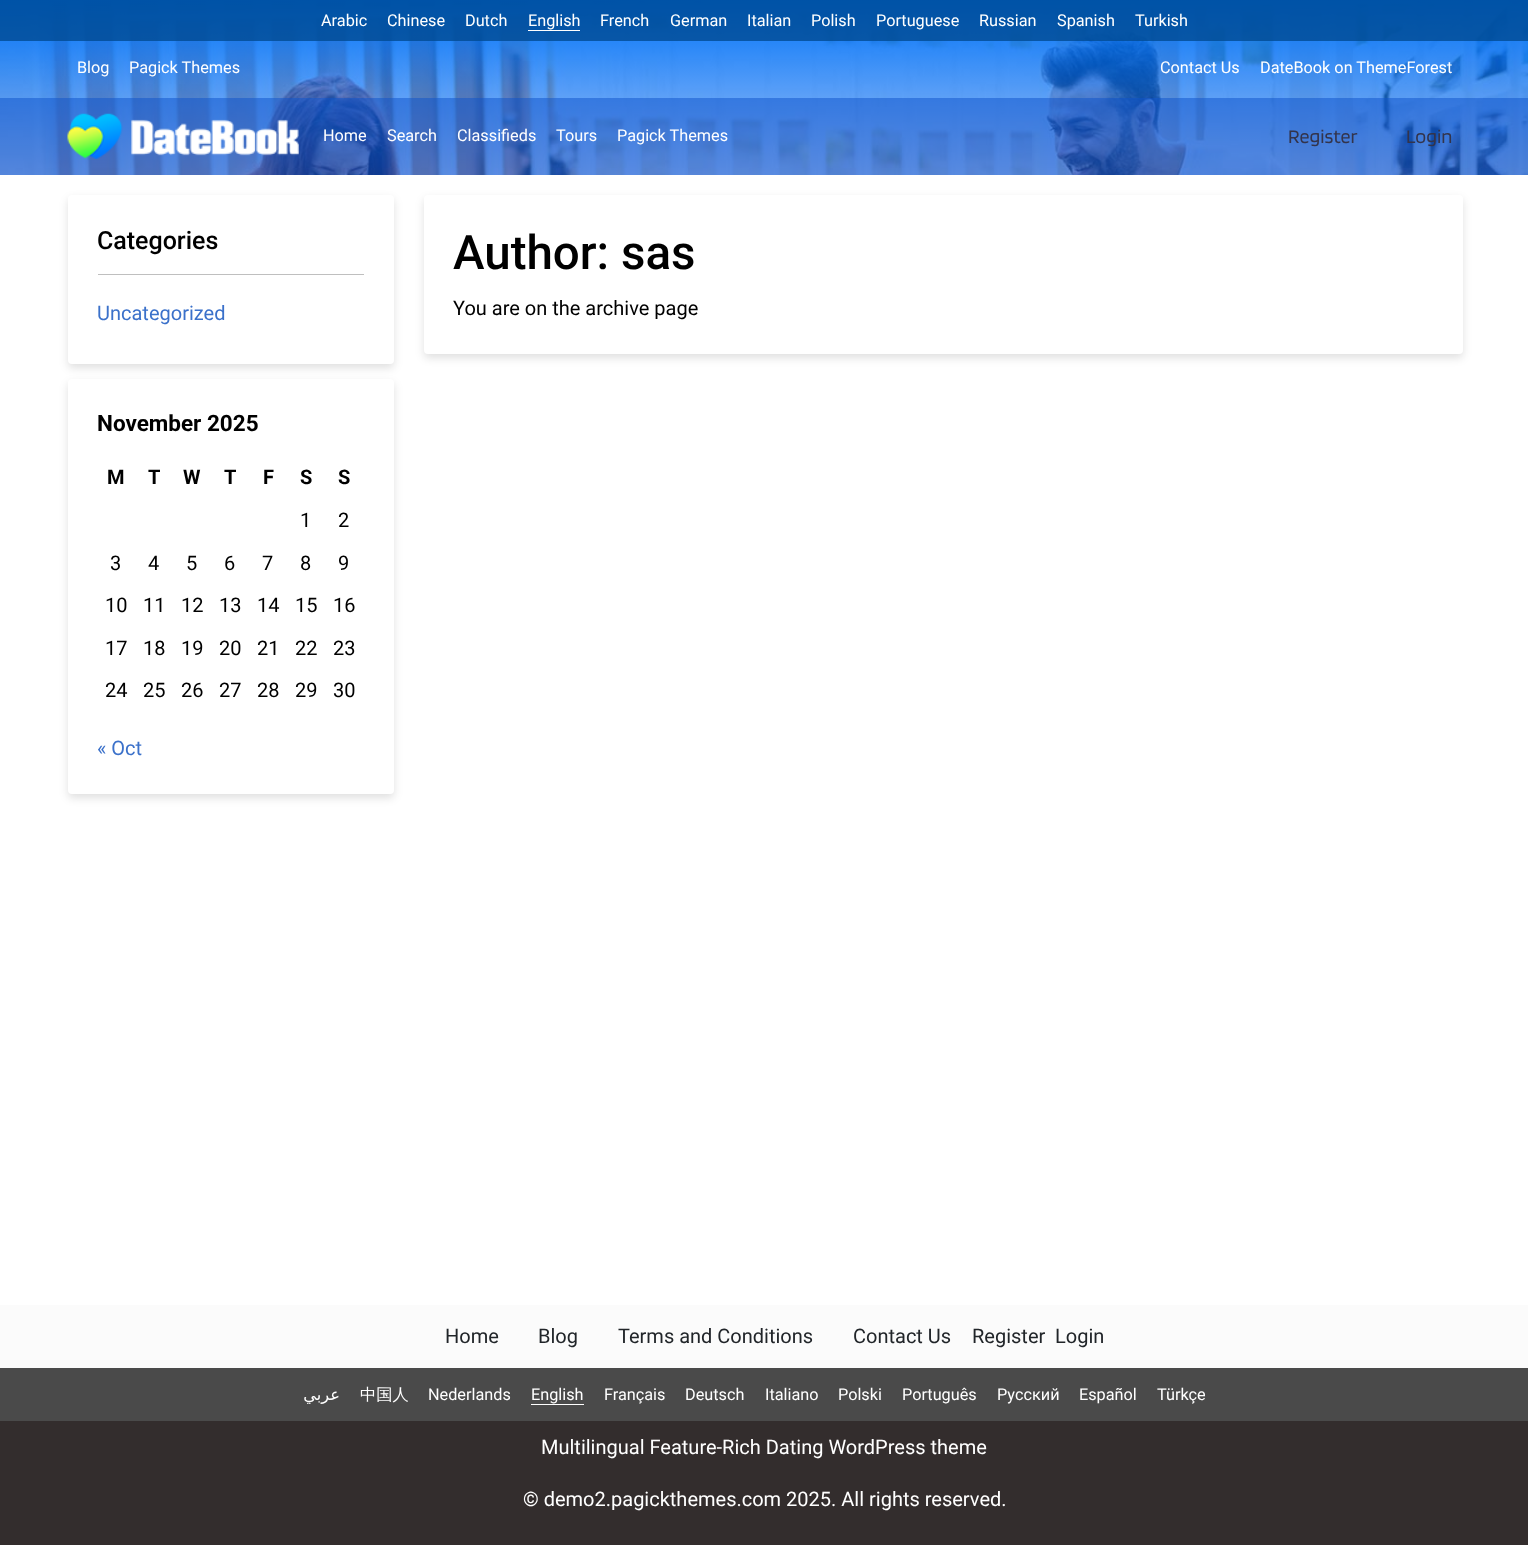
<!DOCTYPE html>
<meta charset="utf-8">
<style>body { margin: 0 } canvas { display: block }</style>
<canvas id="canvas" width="1528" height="1545"></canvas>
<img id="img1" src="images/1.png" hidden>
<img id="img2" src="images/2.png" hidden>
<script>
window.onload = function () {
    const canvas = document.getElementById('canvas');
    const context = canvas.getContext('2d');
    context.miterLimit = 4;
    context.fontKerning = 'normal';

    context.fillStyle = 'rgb(255, 255, 255)';
    context.fillRect(0, 0, 1528, 1545);
    context.drawImage(document.getElementById('img1'), 0, 0, 1528, 175);
    context.fillStyle = 'rgba(0, 73, 144, 0.78)';
    context.fillRect(0, 0, 1528, 41);
    context.fillStyle = 'rgb(255, 255, 255)';
    context.fillRect(528, 30, 52, 1);
    context.fillStyle = 'rgba(16, 85, 204, 0.52)';
    context.fillRect(0, 98, 1528, 77);
    context.drawImage(document.getElementById('img2'), 67, 113, 232, 46);
    context.fillStyle = 'rgba(0, 0, 0, 0.12)';
    context.filter = 'blur(4px)';
    context.beginPath();
    context.roundRect(68, 199, 326, 169, 4);
    context.fill();
    context.filter = 'none';
    context.fillStyle = 'rgb(255, 255, 255)';
    context.beginPath();
    context.roundRect(68, 195, 326, 169, 4);
    context.fill();
    context.fillStyle = 'rgb(191, 191, 191)';
    context.fillRect(98, 274, 266, 1);
    context.fillStyle = 'rgba(0, 0, 0, 0.12)';
    context.filter = 'blur(4px)';
    context.beginPath();
    context.roundRect(68, 383, 326, 415, 4);
    context.fill();
    context.filter = 'none';
    context.fillStyle = 'rgb(255, 255, 255)';
    context.beginPath();
    context.roundRect(68, 379, 326, 415, 4);
    context.fill();
    context.fillStyle = 'rgba(0, 0, 0, 0.12)';
    context.filter = 'blur(4px)';
    context.beginPath();
    context.roundRect(424, 199, 1039, 159, 4);
    context.fill();
    context.filter = 'none';
    context.fillStyle = 'rgb(255, 255, 255)';
    context.beginPath();
    context.roundRect(424, 195, 1039, 159, 4);
    context.fill();
    context.fillStyle = 'rgb(251, 251, 251)';
    context.fillRect(0, 1305, 1528, 63);
    context.fillStyle = 'rgb(74, 74, 74)';
    context.fillRect(0, 1368, 1528, 53);
    context.fillStyle = 'rgb(255, 255, 255)';
    context.fillRect(531, 1404, 53, 1);
    context.fillStyle = 'rgb(51, 45, 45)';
    context.fillRect(0, 1421, 1528, 124);
    context.font = '16.25px Roboto';
    context.fillStyle = 'rgb(255, 255, 255)';
    context.fillText('Arabic', 321, 26);
    context.fillText('Chinese', 387, 26);
    context.fillText('Dutch', 465, 26);
    context.fillText('English', 528, 26);
    context.fillText('French', 600, 26);
    context.fillText('German', 670, 26);
    context.fillText('Italian', 747, 26);
    context.fillText('Polish', 811, 26);
    context.fillText('Portuguese', 876, 26);
    context.fillText('Russian', 979, 26);
    context.fillText('Spanish', 1057, 26);
    context.fillText('Turkish', 1135, 26);
    context.fillText('Blog', 77, 73);
    context.fillText('Pagick Themes', 129, 73);
    context.fillText('Contact Us', 1160, 73);
    context.fillText('DateBook on ThemeForest', 1260, 73);
    context.fillText('Home', 323, 141);
    context.fillText('Search', 387, 141);
    context.fillText('Classifieds', 457, 141);
    context.fillText('Tours', 556, 141);
    context.fillText('Pagick Themes', 617, 141);
    context.font = '20px Blinker';
    context.fillStyle = 'rgb(51, 52, 75)';
    context.fillText('Register', 1288, 143);
    context.fillText('Login', 1406, 143);
    context.font = '500 25px Roboto';
    context.fillStyle = 'rgb(0, 0, 0)';
    context.fillText('Categories', 97, 249);
    context.font = '20px Roboto';
    context.fillStyle = 'rgb(59, 113, 202)';
    context.fillText('Uncategorized', 97, 320);
    context.font = 'bold 22.5px Roboto';
    context.fillStyle = 'rgb(0, 0, 0)';
    context.fillText('November 2025', 97, 431);
    context.font = 'bold 20px Roboto';
    context.fillText('M', 107, 484);
    context.fillText('T', 148, 484);
    context.fillText('W', 183, 484);
    context.fillText('T', 224, 484);
    context.fillText('F', 263, 484);
    context.fillText('S', 300, 484);
    context.fillText('S', 338, 484);
    context.font = '20px Roboto';
    context.fillText('1', 300, 527);
    context.fillText('2', 338, 527);
    context.fillText('3', 110, 570);
    context.fillText('4', 148, 570);
    context.fillText('5', 186, 570);
    context.fillText('6', 224, 570);
    context.fillText('7', 262, 570);
    context.fillText('8', 300, 570);
    context.fillText('9', 338, 570);
    context.fillText('10', 105, 612);
    context.fillText('11', 143, 612);
    context.fillText('12', 181, 612);
    context.fillText('13', 219, 612);
    context.fillText('14', 257, 612);
    context.fillText('15', 295, 612);
    context.fillText('16', 333, 612);
    context.fillText('17', 105, 655);
    context.fillText('18', 143, 655);
    context.fillText('19', 181, 655);
    context.fillText('20', 219, 655);
    context.fillText('21', 257, 655);
    context.fillText('22', 295, 655);
    context.fillText('23', 333, 655);
    context.fillText('24', 105, 697);
    context.fillText('25', 143, 697);
    context.fillText('26', 181, 697);
    context.fillText('27', 219, 697);
    context.fillText('28', 257, 697);
    context.fillText('29', 295, 697);
    context.fillText('30', 333, 697);
    context.fillStyle = 'rgb(59, 113, 202)';
    context.fillText('« Oct', 97, 755);
    context.font = '500 47.5px Roboto';
    context.fillStyle = 'rgb(0, 0, 0)';
    context.fillText('Author: sas', 453, 269);
    context.font = '20px Roboto';
    context.fillText('You are on the archive page', 453, 315);
    context.fillStyle = 'rgb(33, 37, 41)';
    context.fillText('Home', 445, 1343);
    context.fillText('Blog', 538, 1343);
    context.fillText('Terms and Conditions', 618, 1343);
    context.fillText('Contact Us', 853, 1343);
    context.fillText('Register', 972, 1343);
    context.fillText('Login', 1055, 1343);
    context.direction = 'rtl';
    context.font = '16.25px DejaVu Sans';
    context.fillStyle = 'rgb(255, 255, 255)';
    context.fillText('عربي', 340, 1400);
    context.direction = 'ltr';
    context.font = '500 16.25px WenQuanYi Zen Hei';
    context.fillText('中国人', 360, 1400);
    context.font = '16.25px Roboto';
    context.fillText('Nederlands', 428, 1400);
    context.fillText('English', 531, 1400);
    context.fillText('Français', 604, 1400);
    context.fillText('Deutsch', 685, 1400);
    context.fillText('Italiano', 765, 1400);
    context.fillText('Polski', 838, 1400);
    context.fillText('Português', 902, 1400);
    context.fillText('Русский', 997, 1400);
    context.fillText('Español', 1079, 1400);
    context.fillText('Türkçe', 1157, 1400);
    context.font = '20px Roboto';
    context.fillText('Multilingual Feature-Rich Dating WordPress theme', 541, 1454);
    context.fillText('© demo2.pagickthemes.com 2025. All rights reserved.', 523, 1506);
};
</script>
